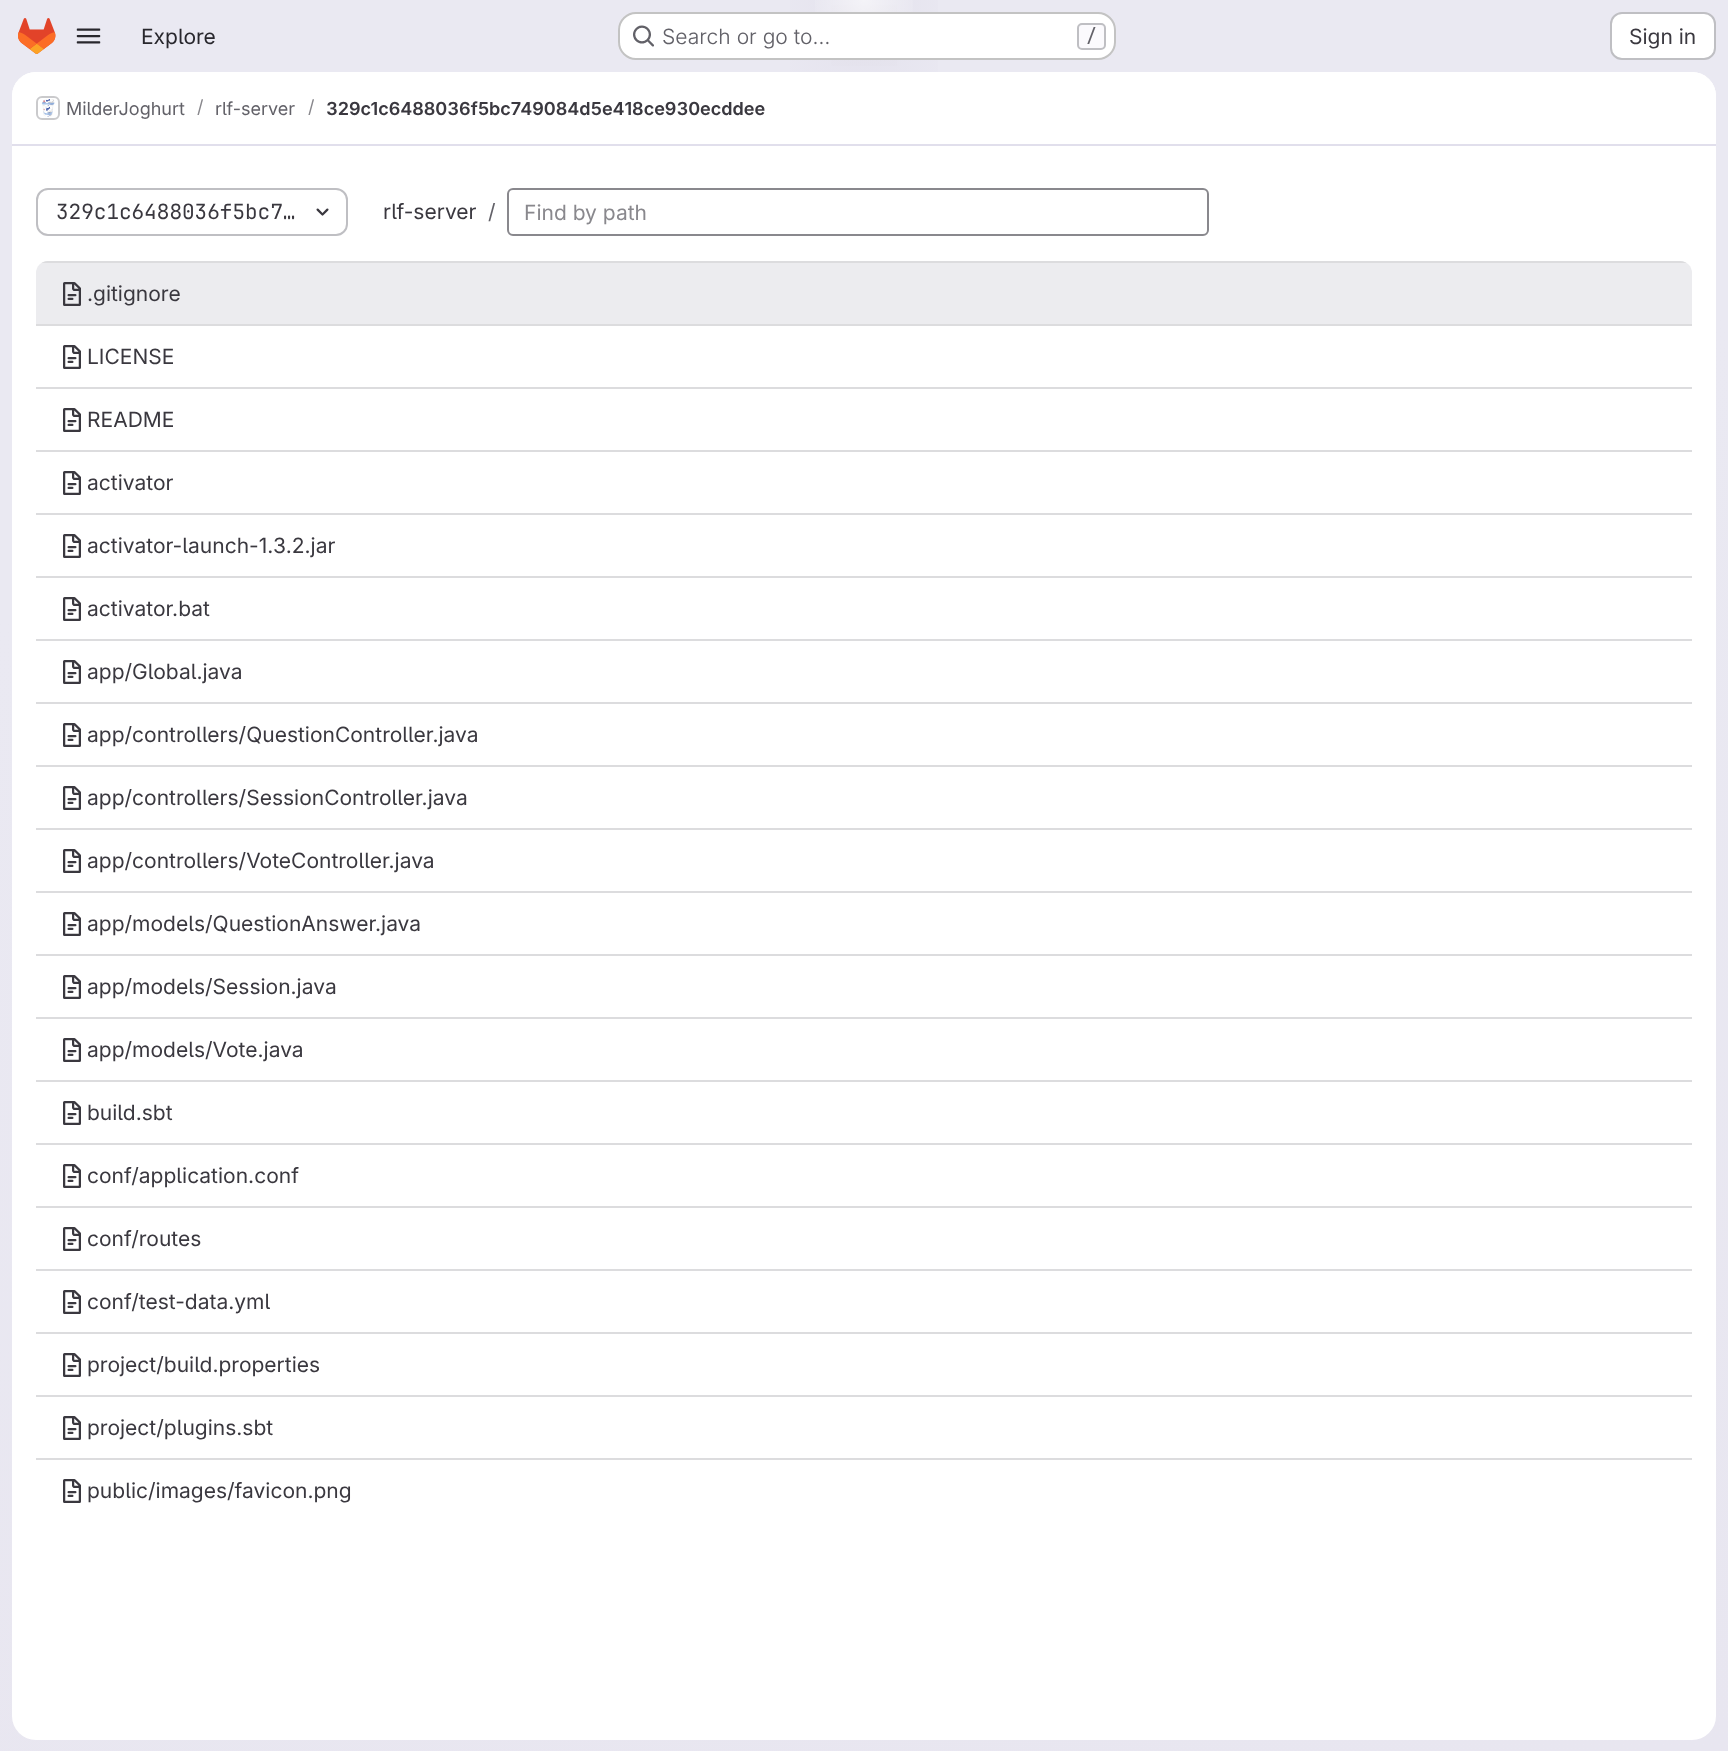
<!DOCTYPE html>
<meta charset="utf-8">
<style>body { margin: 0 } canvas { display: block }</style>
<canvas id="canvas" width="1728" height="1751"></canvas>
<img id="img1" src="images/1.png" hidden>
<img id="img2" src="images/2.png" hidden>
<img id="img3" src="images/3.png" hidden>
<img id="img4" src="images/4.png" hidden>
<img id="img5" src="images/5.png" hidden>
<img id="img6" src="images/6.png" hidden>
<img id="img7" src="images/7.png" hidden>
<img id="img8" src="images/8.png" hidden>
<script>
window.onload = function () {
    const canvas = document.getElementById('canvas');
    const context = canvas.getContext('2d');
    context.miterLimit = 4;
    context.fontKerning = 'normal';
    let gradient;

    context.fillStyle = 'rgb(255, 255, 255)';
    context.fillRect(0, 0, 1728, 1751);
    gradient = context.createLinearGradient(1040, 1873, 688, -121);
    gradient.addColorStop(0, 'rgb(232, 230, 240)');
    gradient.addColorStop(0.7, 'rgb(234, 233, 242)');
    context.fillStyle = gradient;
    context.fillRect(0, 0, 1728, 1751);
    gradient = context.createRadialGradient(864, 0, 0, 864, 0, 864);
    gradient.addColorStop(0, 'rgb(228, 226, 237)');
    gradient.addColorStop(0.12, 'rgba(228, 226, 237, 0)');
    context.fillStyle = gradient;
    context.beginPath();
    context.rect(790, 0, 148, 72);
    context.save();
    context.clip();
    context.scale(1, 1752 / 864);
    context.fillRect(0, 0, 1728, 864);
    context.restore();
    gradient = context.createRadialGradient(864, 0, 0, 864, 0, 864);
    gradient.addColorStop(0, 'rgb(228, 226, 236)');
    gradient.addColorStop(0.09, 'rgba(228, 226, 236, 0)');
    context.fillStyle = gradient;
    context.beginPath();
    context.rect(831, 5, 66, 61);
    context.save();
    context.clip();
    context.scale(1, 1752 / 864);
    context.fillRect(0, 0, 1728, 864);
    context.restore();
    gradient = context.createRadialGradient(864, 0, 0, 864, 0, 1953);
    gradient.addColorStop(0, 'rgba(255, 255, 255, 0.6)');
    gradient.addColorStop(0.03, 'rgba(255, 255, 255, 0)');
    context.fillStyle = gradient;
    context.fillRect(815, 0, 98, 49);
    context.drawImage(document.getElementById('img1'), 18, 18, 38, 36);
    context.drawImage(document.getElementById('img2'), 76, 28, 25, 16);
    context.fillStyle = 'rgb(255, 255, 255)';
    context.beginPath();
    context.roundRect(618, 12, 498, 48, 18);
    context.fill();
    context.beginPath();
    context.roundRect(619, 13, 496, 46, 17);
    context.strokeStyle = 'rgba(5, 5, 6, 0.24)';
    context.lineWidth = 2;
    context.stroke();
    context.drawImage(document.getElementById('img3'), 633, 25, 21, 22);
    context.fillStyle = 'rgb(251, 250, 253)';
    context.beginPath();
    context.roundRect(1078, 24, 27, 25, 4);
    context.fill();
    context.strokeStyle = 'rgb(191, 191, 195)';
    context.stroke();
    context.fillStyle = 'rgb(255, 255, 255)';
    context.beginPath();
    context.roundRect(1611, 13, 104, 46, 11);
    context.fill();
    context.stroke();
    context.beginPath();
    context.roundRect(12, 72, 1704, 1668, 24);
    context.fill();
    context.beginPath();
    context.roundRect(12, 72, 1704, 74, [24, 24, 0, 0]);
    context.fill();
    context.fillStyle = 'rgb(225, 223, 236)';
    context.fillRect(12, 144, 1704, 2);
    context.beginPath();
    context.roundRect(37, 97, 22, 22, 5);
    context.strokeStyle = 'rgb(220, 220, 222)';
    context.stroke();
    context.drawImage(document.getElementById('img4'), 41, 99, 14, 18);
    context.beginPath();
    context.roundRect(37, 97, 22, 22, 5);
    context.strokeStyle = 'rgba(5, 5, 6, 0.08)';
    context.stroke();
    context.beginPath();
    context.roundRect(37, 189, 310, 46, 11);
    context.strokeStyle = 'rgb(191, 191, 195)';
    context.stroke();
    context.drawImage(document.getElementById('img5'), 316, 208, 13, 8);
    context.beginPath();
    context.roundRect(508, 189, 700, 46, 5);
    context.strokeStyle = 'rgb(137, 136, 141)';
    context.stroke();
    context.fillStyle = 'rgb(236, 236, 239)';
    context.beginPath();
    context.roundRect(36, 261, 1656, 63, [12, 12, 0, 0]);
    context.fill();
    context.save();
    context.beginPath();
    context.roundRect(36, 261, 1656, 1260, 12);
    context.clip();
    context.fillStyle = 'rgb(220, 220, 222)';
    context.fillRect(36, 261, 1656, 2);
    context.restore();
    context.drawImage(document.getElementById('img6'), 63, 282, 18, 24);
    context.fillStyle = 'rgb(220, 220, 222)';
    context.fillRect(36, 324, 1656, 2);
    context.drawImage(document.getElementById('img7'), 63, 345, 18, 24);
    context.fillRect(36, 387, 1656, 2);
    context.drawImage(document.getElementById('img7'), 63, 408, 18, 24);
    context.fillRect(36, 450, 1656, 2);
    context.drawImage(document.getElementById('img7'), 63, 471, 18, 24);
    context.fillRect(36, 513, 1656, 2);
    context.drawImage(document.getElementById('img8'), 63, 534, 18, 24);
    context.fillRect(36, 576, 1656, 2);
    context.drawImage(document.getElementById('img8'), 63, 597, 18, 24);
    context.fillRect(36, 639, 1656, 2);
    context.drawImage(document.getElementById('img8'), 63, 660, 18, 24);
    context.fillRect(36, 702, 1656, 2);
    context.drawImage(document.getElementById('img8'), 63, 723, 18, 24);
    context.fillRect(36, 765, 1656, 2);
    context.drawImage(document.getElementById('img8'), 63, 786, 18, 24);
    context.fillRect(36, 828, 1656, 2);
    context.drawImage(document.getElementById('img8'), 63, 849, 18, 24);
    context.fillRect(36, 891, 1656, 2);
    context.drawImage(document.getElementById('img8'), 63, 912, 18, 24);
    context.fillRect(36, 954, 1656, 2);
    context.drawImage(document.getElementById('img8'), 63, 975, 18, 24);
    context.fillRect(36, 1017, 1656, 2);
    context.drawImage(document.getElementById('img8'), 63, 1038, 18, 24);
    context.fillRect(36, 1080, 1656, 2);
    context.drawImage(document.getElementById('img8'), 63, 1101, 18, 24);
    context.fillRect(36, 1143, 1656, 2);
    context.drawImage(document.getElementById('img8'), 63, 1164, 18, 24);
    context.fillRect(36, 1206, 1656, 2);
    context.drawImage(document.getElementById('img8'), 63, 1227, 18, 24);
    context.fillRect(36, 1269, 1656, 2);
    context.drawImage(document.getElementById('img7'), 63, 1290, 18, 24);
    context.fillRect(36, 1332, 1656, 2);
    context.drawImage(document.getElementById('img7'), 63, 1353, 18, 24);
    context.fillRect(36, 1395, 1656, 2);
    context.drawImage(document.getElementById('img7'), 63, 1416, 18, 24);
    context.fillRect(36, 1458, 1656, 2);
    context.drawImage(document.getElementById('img7'), 63, 1479, 18, 24);
    context.font = '21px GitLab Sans';
    context.fillStyle = 'rgb(40, 39, 45)';
    context.fillText('Explore', 141, 44);
    context.font = '300 21px GitLab Sans';
    context.fillStyle = 'rgb(98, 97, 104)';
    context.fillText('Search or go to…', 662, 44);
    context.font = '500 18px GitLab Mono';
    context.fillText('/', 1086, 42);
    context.font = '21px GitLab Sans';
    context.fillStyle = 'rgb(58, 56, 63)';
    context.fillText('Sign in', 1629, 44);
    context.font = '18px GitLab Sans';
    context.fillStyle = 'rgb(98, 97, 104)';
    context.fillText('MilderJoghurt', 66, 115);
    context.fillStyle = 'rgb(137, 136, 141)';
    context.fillText('/', 197, 113);
    context.fillStyle = 'rgb(98, 97, 104)';
    context.fillText('rlf-server', 215, 115);
    context.fillStyle = 'rgb(137, 136, 141)';
    context.fillText('/', 308, 113);
    context.font = '600 18px GitLab Sans';
    context.fillStyle = 'rgb(58, 56, 63)';
    context.fillText('329c1c6488036f5bc749084d5e418ce930ecddee', 326, 115);
    context.font = '21px GitLab Mono';
    context.fillText('329c1c6488036f5bc7…', 56, 219);
    context.font = '21px GitLab Sans';
    context.fillText('rlf-server', 383, 219);
    context.fillStyle = 'rgb(98, 97, 104)';
    context.fillText('/', 488, 219);
    context.fillStyle = 'rgb(137, 136, 141)';
    context.fillText('Find by path', 524, 220);
    context.fillStyle = 'rgb(58, 56, 63)';
    context.fillText('.gitignore', 87, 301);
    context.fillText('LICENSE', 87, 364);
    context.fillText('README', 87, 427);
    context.fillText('activator', 87, 490);
    context.fillText('activator-launch-1.3.2.jar', 87, 553);
    context.fillText('activator.bat', 87, 616);
    context.fillText('app/Global.java', 87, 679);
    context.fillText('app/controllers/QuestionController.java', 87, 742);
    context.fillText('app/controllers/SessionController.java', 87, 805);
    context.fillText('app/controllers/VoteController.java', 87, 868);
    context.fillText('app/models/QuestionAnswer.java', 87, 931);
    context.fillText('app/models/Session.java', 87, 994);
    context.fillText('app/models/Vote.java', 87, 1057);
    context.fillText('build.sbt', 87, 1120);
    context.fillText('conf/application.conf', 87, 1183);
    context.fillText('conf/routes', 87, 1246);
    context.fillText('conf/test-data.yml', 87, 1309);
    context.fillText('project/build.properties', 87, 1372);
    context.fillText('project/plugins.sbt', 87, 1435);
    context.fillText('public/images/favicon.png', 87, 1498);
};
</script>
